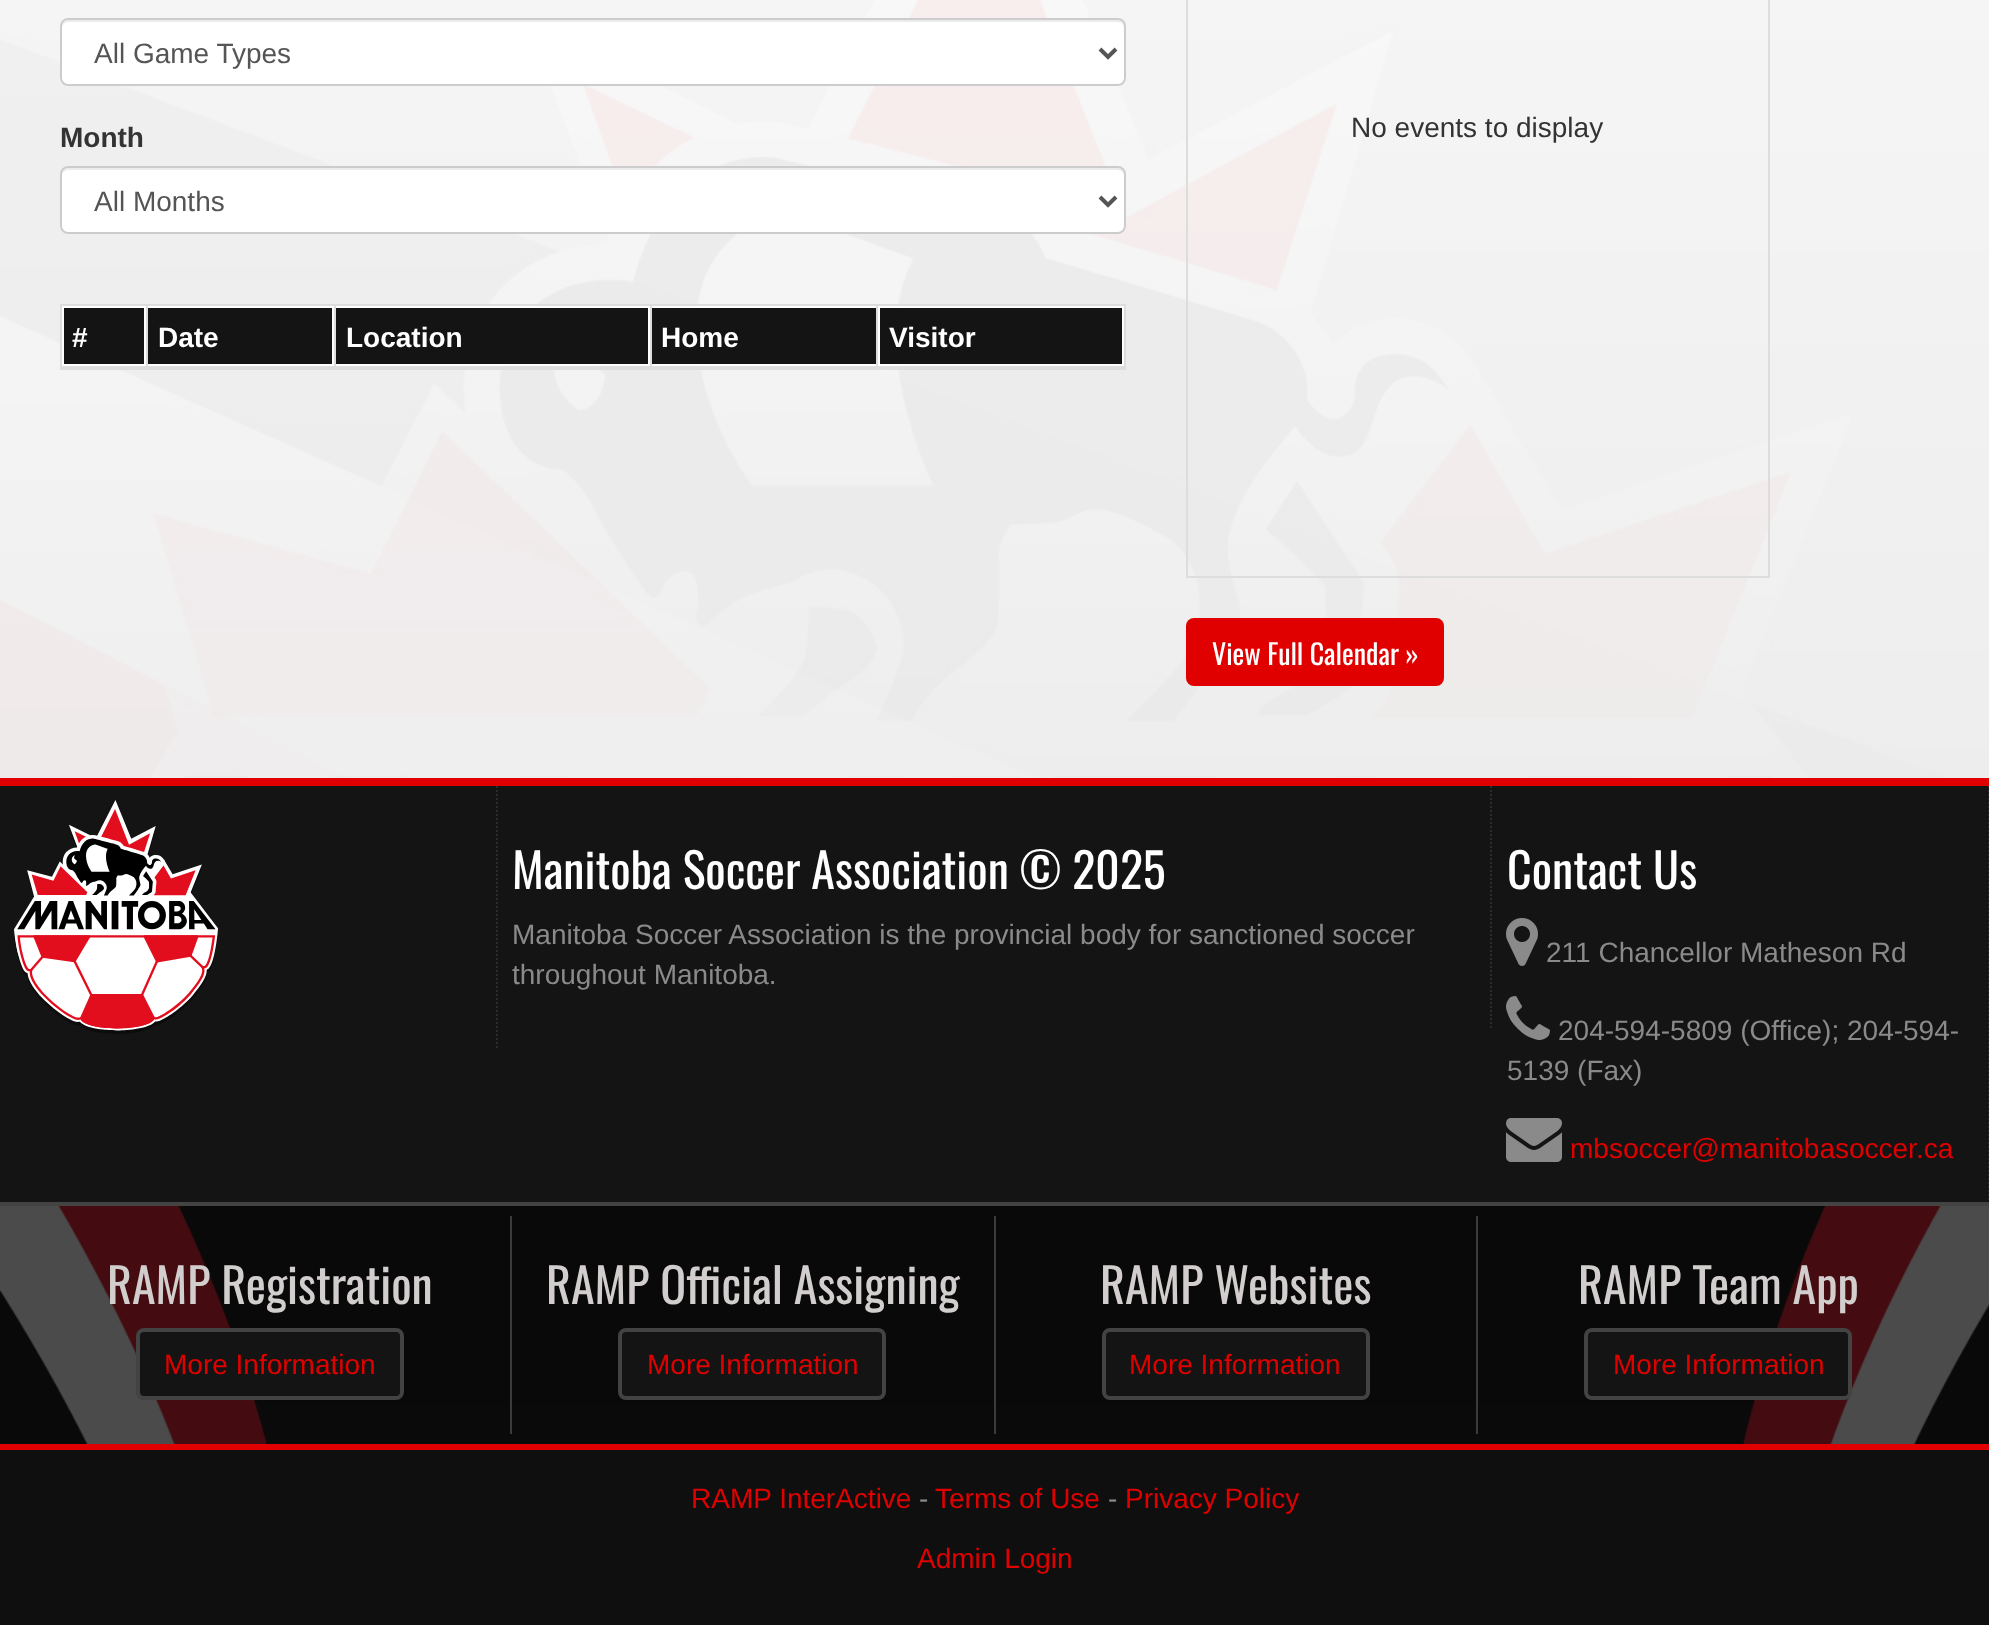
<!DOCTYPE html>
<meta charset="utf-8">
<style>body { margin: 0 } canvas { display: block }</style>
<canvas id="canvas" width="1989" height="1625"></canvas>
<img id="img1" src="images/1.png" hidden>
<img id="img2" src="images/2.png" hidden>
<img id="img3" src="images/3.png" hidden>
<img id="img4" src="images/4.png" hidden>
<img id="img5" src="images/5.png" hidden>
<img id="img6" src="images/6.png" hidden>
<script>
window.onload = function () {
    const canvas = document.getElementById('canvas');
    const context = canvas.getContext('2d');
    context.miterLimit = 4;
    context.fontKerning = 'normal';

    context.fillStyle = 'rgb(255, 255, 255)';
    context.fillRect(0, 0, 1989, 1625);
    context.drawImage(document.getElementById('img1'), 0, 0, 1989, 778);
    context.fillStyle = 'rgba(255, 255, 255, 0.9)';
    context.fillRect(0, 0, 1989, 778);
    context.fillStyle = 'rgb(255, 255, 255)';
    context.beginPath();
    context.roundRect(60, 18, 1066, 68, 8);
    context.fill();
    context.fillStyle = 'rgb(236, 236, 236)';
    context.beginPath();
    context.moveTo(68, 22);
    context.lineTo(1118, 22);
    context.bezierCurveTo(1121, 22, 1124, 25, 1124, 28);
    context.lineTo(1124, 26);
    context.bezierCurveTo(1124, 23, 1121, 20, 1118, 20);
    context.lineTo(68, 20);
    context.bezierCurveTo(65, 20, 62, 23, 62, 26);
    context.lineTo(62, 28);
    context.bezierCurveTo(62, 25, 65, 22, 68, 22);
    context.closePath();
    context.fill();
    context.beginPath();
    context.roundRect(61, 19, 1064, 66, 7);
    context.strokeStyle = 'rgb(204, 204, 204)';
    context.lineWidth = 2;
    context.stroke();
    context.beginPath();
    context.moveTo(1100, 49);
    context.lineTo(1108, 57);
    context.lineTo(1116, 49);
    context.strokeStyle = 'rgb(85, 85, 85)';
    context.lineWidth = 4;
    context.stroke();
    context.fillStyle = 'rgb(255, 255, 255)';
    context.beginPath();
    context.roundRect(60, 166, 1066, 68, 8);
    context.fill();
    context.fillStyle = 'rgb(236, 236, 236)';
    context.beginPath();
    context.moveTo(68, 170);
    context.lineTo(1118, 170);
    context.bezierCurveTo(1121, 170, 1124, 173, 1124, 176);
    context.lineTo(1124, 174);
    context.bezierCurveTo(1124, 171, 1121, 168, 1118, 168);
    context.lineTo(68, 168);
    context.bezierCurveTo(65, 168, 62, 171, 62, 174);
    context.lineTo(62, 176);
    context.bezierCurveTo(62, 173, 65, 170, 68, 170);
    context.closePath();
    context.fill();
    context.beginPath();
    context.roundRect(61, 167, 1064, 66, 7);
    context.strokeStyle = 'rgb(204, 204, 204)';
    context.lineWidth = 2;
    context.stroke();
    context.beginPath();
    context.moveTo(1100, 197);
    context.lineTo(1108, 205);
    context.lineTo(1116, 197);
    context.strokeStyle = 'rgb(85, 85, 85)';
    context.lineWidth = 4;
    context.stroke();
    context.fillStyle = 'rgb(221, 221, 221)';
    context.fillRect(60, 304, 1066, 2);
    context.fillRect(1124, 304, 2, 66);
    context.fillRect(60, 304, 2, 66);
    context.fillStyle = 'rgba(255, 255, 255, 0.9)';
    context.fillRect(62, 306, 1062, 60);
    context.fillStyle = 'rgb(20, 20, 20)';
    context.fillRect(64, 308, 80, 56);
    context.fillRect(148, 308, 184, 56);
    context.fillStyle = 'rgb(221, 221, 221)';
    context.fillRect(146, 304, 2, 66);
    context.fillStyle = 'rgb(20, 20, 20)';
    context.fillRect(336, 308, 312, 56);
    context.fillStyle = 'rgb(221, 221, 221)';
    context.fillRect(334, 304, 2, 66);
    context.fillStyle = 'rgb(20, 20, 20)';
    context.fillRect(652, 308, 224, 56);
    context.fillStyle = 'rgb(221, 221, 221)';
    context.fillRect(650, 304, 2, 66);
    context.fillStyle = 'rgb(20, 20, 20)';
    context.fillRect(880, 308, 242, 56);
    context.fillStyle = 'rgb(221, 221, 221)';
    context.fillRect(876, 304, 2, 66);
    context.fillRect(60, 366, 1066, 4);
    context.strokeStyle = 'rgb(221, 221, 221)';
    context.lineWidth = 2;
    context.strokeRect(1187, -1, 582, 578);
    context.fillStyle = 'rgb(224, 0, 0)';
    context.beginPath();
    context.roundRect(1186, 618, 258, 68, 8);
    context.fill();
    context.fillRect(0, 778, 1989, 8);
    context.fillStyle = 'rgb(20, 20, 20)';
    context.fillRect(0, 786, 1989, 416);
    context.beginPath();
    context.moveTo(497, 786);
    context.lineTo(497, 1048);
    context.strokeStyle = 'rgb(44, 44, 44)';
    context.setLineDash([2, 2]);
    context.stroke();
    context.drawImage(document.getElementById('img2'), 14, 800, 204, 234);
    context.beginPath();
    context.moveTo(1491, 786);
    context.lineTo(1491, 1028);
    context.stroke();
    context.beginPath();
    context.moveTo(1989, 786);
    context.lineTo(1989, 1202);
    context.stroke();
    context.drawImage(document.getElementById('img3'), 1506, 918, 32, 48);
    context.drawImage(document.getElementById('img4'), 1506, 996, 44, 44);
    context.drawImage(document.getElementById('img5'), 1506, 1118, 56, 44);
    context.fillStyle = 'rgb(67, 67, 67)';
    context.fillRect(0, 1202, 1989, 4);
    context.fillStyle = 'rgb(14, 14, 14)';
    context.fillRect(0, 1206, 1989, 238);
    context.drawImage(document.getElementById('img6'), 0, 1206, 1989, 238);
    context.fillStyle = 'rgb(59, 59, 59)';
    context.fillRect(510, 1216, 2, 218);
    context.fillStyle = 'rgb(20, 20, 20)';
    context.beginPath();
    context.roundRect(136, 1328, 268, 72, 8);
    context.fill();
    context.beginPath();
    context.roundRect(138, 1330, 264, 68, 6);
    context.strokeStyle = 'rgba(255, 255, 255, 0.2)';
    context.lineWidth = 4;
    context.setLineDash([]);
    context.stroke();
    context.fillStyle = 'rgb(59, 59, 59)';
    context.fillRect(994, 1216, 2, 218);
    context.fillStyle = 'rgb(20, 20, 20)';
    context.beginPath();
    context.roundRect(618, 1328, 268, 72, 8);
    context.fill();
    context.beginPath();
    context.roundRect(620, 1330, 264, 68, 6);
    context.stroke();
    context.fillStyle = 'rgb(59, 59, 59)';
    context.fillRect(1476, 1216, 2, 218);
    context.fillStyle = 'rgb(20, 20, 20)';
    context.beginPath();
    context.roundRect(1102, 1328, 268, 72, 8);
    context.fill();
    context.beginPath();
    context.roundRect(1104, 1330, 264, 68, 6);
    context.stroke();
    context.beginPath();
    context.roundRect(1584, 1328, 268, 72, 8);
    context.fill();
    context.beginPath();
    context.roundRect(1586, 1330, 264, 68, 6);
    context.stroke();
    context.fillStyle = 'rgb(224, 0, 0)';
    context.fillRect(0, 1444, 1989, 6);
    context.fillStyle = 'rgb(15, 15, 15)';
    context.fillRect(0, 1450, 1989, 175);
    context.font = '28px Liberation Sans';
    context.fillStyle = 'rgb(85, 85, 85)';
    context.fillText('All Game Types', 94, 63);
    context.font = 'bold 28px Liberation Sans';
    context.fillStyle = 'rgb(51, 51, 51)';
    context.fillText('Month', 60, 147);
    context.font = '28px Liberation Sans';
    context.fillStyle = 'rgb(85, 85, 85)';
    context.fillText('All Months', 94, 211);
    context.font = 'bold 28px Liberation Sans';
    context.fillStyle = 'rgb(255, 255, 255)';
    context.fillText('#', 72, 347);
    context.fillText('Date', 158, 347);
    context.fillText('Location', 346, 347);
    context.fillText('Home', 661, 347);
    context.fillText('Visitor', 889, 347);
    context.font = '28px Liberation Sans';
    context.fillStyle = 'rgb(51, 51, 51)';
    context.fillText('No events to display', 1351, 137);
    context.font = '28px Oswald';
    context.fillStyle = 'rgb(255, 255, 255)';
    context.fillText('View Full Calendar »', 1212, 665);
    context.font = '48px Oswald';
    context.fillText('Manitoba Soccer Association © 2025', 512, 889);
    context.font = '28px Liberation Sans';
    context.fillStyle = 'rgb(138, 138, 138)';
    context.fillText('Manitoba Soccer Association is the provincial body for sanctioned soccer', 512, 944);
    context.fillText('throughout Manitoba.', 512, 984);
    context.font = '48px Oswald';
    context.fillStyle = 'rgb(255, 255, 255)';
    context.fillText('Contact Us', 1507, 889);
    context.font = '28px Liberation Sans';
    context.fillStyle = 'rgb(138, 138, 138)';
    context.fillText('211 Chancellor Matheson Rd', 1546, 962);
    context.fillText('204-594-5809 (Office); 204-594-', 1558, 1040);
    context.fillText('5139 (Fax)', 1507, 1080);
    context.fillStyle = 'rgb(224, 0, 0)';
    context.fillText('mbsoccer@manitobasoccer.ca', 1570, 1158);
    context.font = '48px Oswald';
    context.fillStyle = 'rgb(210, 206, 206)';
    context.fillText('RAMP Registration', 107, 1304);
    context.font = '28px Liberation Sans';
    context.fillStyle = 'rgb(224, 0, 0)';
    context.fillText('More Information', 164, 1374);
    context.font = '48px Oswald';
    context.fillStyle = 'rgb(210, 206, 206)';
    context.fillText('RAMP Official Assigning', 546, 1304);
    context.font = '28px Liberation Sans';
    context.fillStyle = 'rgb(224, 0, 0)';
    context.fillText('More Information', 647, 1374);
    context.font = '48px Oswald';
    context.fillStyle = 'rgb(210, 206, 206)';
    context.fillText('RAMP Websites', 1100, 1304);
    context.font = '28px Liberation Sans';
    context.fillStyle = 'rgb(224, 0, 0)';
    context.fillText('More Information', 1129, 1374);
    context.font = '48px Oswald';
    context.fillStyle = 'rgb(210, 206, 206)';
    context.fillText('RAMP Team App', 1578, 1304);
    context.font = '28px Liberation Sans';
    context.fillStyle = 'rgb(224, 0, 0)';
    context.fillText('More Information', 1613, 1374);
    context.fillText('RAMP InterActive', 691, 1508);
    context.fillStyle = 'rgb(138, 138, 138)';
    context.fillText('-', 919, 1508);
    context.fillStyle = 'rgb(224, 0, 0)';
    context.fillText('Terms of Use', 935, 1508);
    context.fillStyle = 'rgb(138, 138, 138)';
    context.fillText('-', 1108, 1508);
    context.fillStyle = 'rgb(224, 0, 0)';
    context.fillText('Privacy Policy', 1125, 1508);
    context.fillText('Admin Login', 917, 1568);
};
</script>
